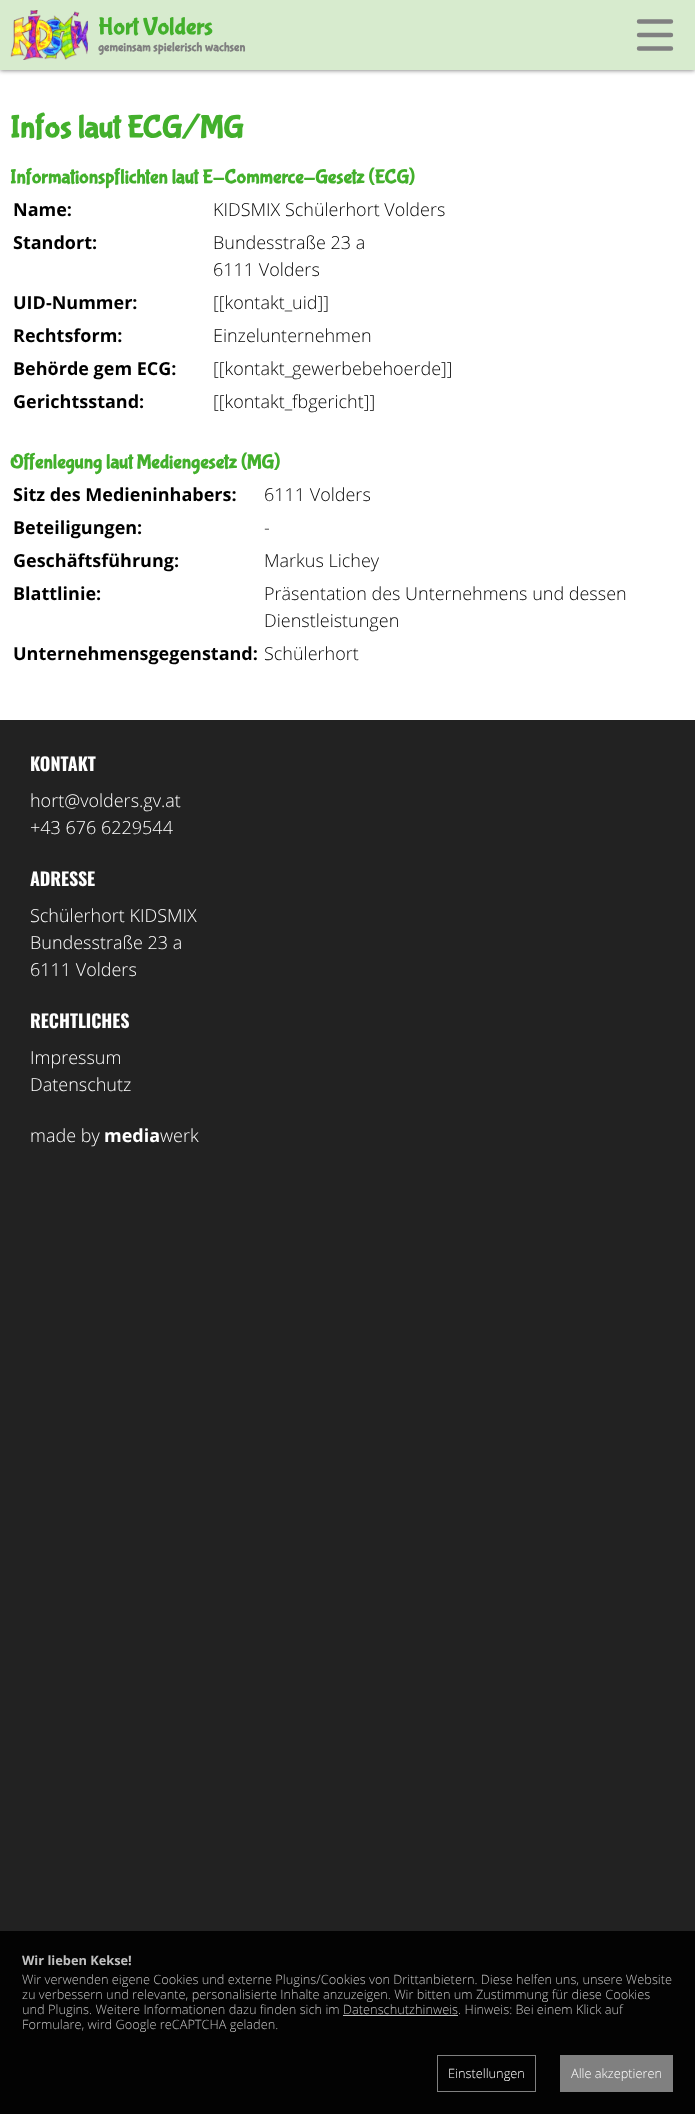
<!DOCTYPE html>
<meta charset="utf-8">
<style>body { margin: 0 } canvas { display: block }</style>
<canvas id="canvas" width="695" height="2114"></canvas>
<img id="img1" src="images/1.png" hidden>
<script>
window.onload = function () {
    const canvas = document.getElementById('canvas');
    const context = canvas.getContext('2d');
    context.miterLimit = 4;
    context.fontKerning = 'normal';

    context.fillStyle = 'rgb(34, 34, 34)';
    context.fillRect(0, 0, 695, 2114);
    context.fillStyle = 'rgb(255, 255, 255)';
    context.fillRect(0, 70, 695, 650);
    context.fillStyle = 'rgb(102, 102, 102)';
    context.filter = 'blur(2.5px)';
    context.beginPath();
    context.rect(0, 0, 695, 70);
    context.fill();
    context.filter = 'none';
    context.fillStyle = 'rgb(215, 235, 206)';
    context.fillRect(0, 0, 695, 70);
    context.drawImage(document.getElementById('img1'), 10, 10, 78, 50);
    context.beginPath();
    context.moveTo(639, 21.5);
    context.lineTo(671, 21.5);
    context.moveTo(639, 35);
    context.lineTo(671, 35);
    context.moveTo(639, 48.5);
    context.lineTo(671, 48.5);
    context.strokeStyle = 'rgb(128, 128, 128)';
    context.lineWidth = 4.4;
    context.lineCap = 'round';
    context.stroke();
    context.fillStyle = 'rgb(3, 3, 3)';
    context.fillRect(0, 1931, 695, 183);
    context.fillStyle = 'rgb(192, 192, 192)';
    context.fillRect(343, 2015, 115, 1);
    context.lineWidth = 1;
    context.strokeRect(437.5, 2055.5, 98, 36);
    context.fillStyle = 'rgb(128, 128, 128)';
    context.fillRect(560, 2055, 113, 37);
    context.font = 'bold 24px Bubblegum Sans';
    context.fillStyle = 'rgb(67, 176, 44)';
    context.fillText('Hort Volders', 98, 34);
    context.font = 'bold 12.8px Bubblegum Sans';
    context.fillStyle = 'rgb(128, 128, 128)';
    context.fillText('gemeinsam spielerisch wachsen', 98, 51);
    context.font = 'bold 32px Bubblegum Sans';
    context.fillStyle = 'rgb(67, 176, 44)';
    context.fillText('Infos laut ECG/MG', 10, 137);
    context.font = 'bold 20px Bubblegum Sans';
    context.fillText('Informationspflichten laut E-Commerce-Gesetz (ECG)', 10, 183);
    context.font = 'bold 18px Open Sans';
    context.fillStyle = 'rgb(0, 0, 0)';
    context.fillText('Name:', 13, 216);
    context.font = '300 18px Open Sans';
    context.fillText('KIDSMIX Schülerhort Volders', 213, 216);
    context.font = 'bold 18px Open Sans';
    context.fillText('Standort:', 13, 249);
    context.font = '300 18px Open Sans';
    context.fillText('Bundesstraße 23 a', 213, 249);
    context.fillText('6111 Volders', 213, 276);
    context.font = 'bold 18px Open Sans';
    context.fillText('UID-Nummer:', 13, 309);
    context.font = '300 18px Open Sans';
    context.fillText('[[kontakt_uid]]', 213, 309);
    context.font = 'bold 18px Open Sans';
    context.fillText('Rechtsform:', 13, 342);
    context.font = '300 18px Open Sans';
    context.fillText('Einzelunternehmen', 213, 342);
    context.font = 'bold 18px Open Sans';
    context.fillText('Behörde gem ECG:', 13, 375);
    context.font = '300 18px Open Sans';
    context.fillText('[[kontakt_gewerbebehoerde]]', 213, 375);
    context.font = 'bold 18px Open Sans';
    context.fillText('Gerichtsstand:', 13, 408);
    context.font = '300 18px Open Sans';
    context.fillText('[[kontakt_fbgericht]]', 213, 408);
    context.font = 'bold 20px Bubblegum Sans';
    context.fillStyle = 'rgb(67, 176, 44)';
    context.fillText('Offenlegung laut Mediengesetz (MG)', 10, 468);
    context.font = 'bold 18px Open Sans';
    context.fillStyle = 'rgb(0, 0, 0)';
    context.fillText('Sitz des Medieninhabers:', 13, 501);
    context.font = '300 18px Open Sans';
    context.fillText('6111 Volders', 264, 501);
    context.font = 'bold 18px Open Sans';
    context.fillText('Beteiligungen:', 13, 534);
    context.font = '300 18px Open Sans';
    context.fillText('-', 264, 534);
    context.font = 'bold 18px Open Sans';
    context.fillText('Geschäftsführung:', 13, 567);
    context.font = '300 18px Open Sans';
    context.fillText('Markus Lichey', 264, 567);
    context.font = 'bold 18px Open Sans';
    context.fillText('Blattlinie:', 13, 600);
    context.font = '300 18px Open Sans';
    context.fillText('Präsentation des Unternehmens und dessen', 264, 600);
    context.fillText('Dienstleistungen', 264, 627);
    context.font = 'bold 18px Open Sans';
    context.fillText('Unternehmensgegenstand:', 13, 660);
    context.font = '300 18px Open Sans';
    context.fillText('Schülerhort', 264, 660);
    context.font = 'bold 18px Oswald';
    context.fillStyle = 'rgb(255, 255, 255)';
    context.fillText('KONTAKT', 30, 771);
    context.font = '300 18px Open Sans';
    context.fillText('hort@volders.gv.at', 30, 807);
    context.fillText('+43 676 6229544', 30, 834);
    context.font = 'bold 18px Oswald';
    context.fillText('ADRESSE', 30, 886);
    context.font = '300 18px Open Sans';
    context.fillText('Schülerhort KIDSMIX', 30, 922);
    context.fillText('Bundesstraße 23 a', 30, 949);
    context.fillText('6111 Volders', 30, 976);
    context.font = 'bold 18px Oswald';
    context.fillText('RECHTLICHES', 30, 1028);
    context.font = '300 18px Open Sans';
    context.fillText('Impressum', 30, 1064);
    context.fillText('Datenschutz', 30, 1091);
    context.fillText('made by', 30, 1142);
    context.font = 'bold 18px Open Sans';
    context.fillText('media', 104, 1142);
    context.font = '300 18px Open Sans';
    context.fillText('werk', 160, 1142);
    context.font = 'bold 12.8px Open Sans';
    context.fillStyle = 'rgb(192, 192, 192)';
    context.fillText('Wir lieben Kekse!', 22, 1965);
    context.font = '300 12.8px Open Sans';
    context.fillText('Wir verwenden eigene Cookies und externe Plugins/Cookies von Drittanbietern. Diese helfen uns, unsere Website', 22, 1984);
    context.fillText('zu verbessern und relevante, personalisierte Inhalte anzuzeigen. Wir bitten um Zustimmung für diese Cookies', 22, 1999);
    context.fillText('und Plugins. Weitere Informationen dazu finden sich im Datenschutzhinweis. Hinweis: Bei einem Klick auf', 22, 2014);
    context.fillText('Formulare, wird Google reCAPTCHA geladen.', 22, 2029);
    context.fillStyle = 'rgb(255, 255, 255)';
    context.fillText('Einstellungen', 448, 2078);
    context.fillText('Alle akzeptieren', 571, 2078);
};
</script>
